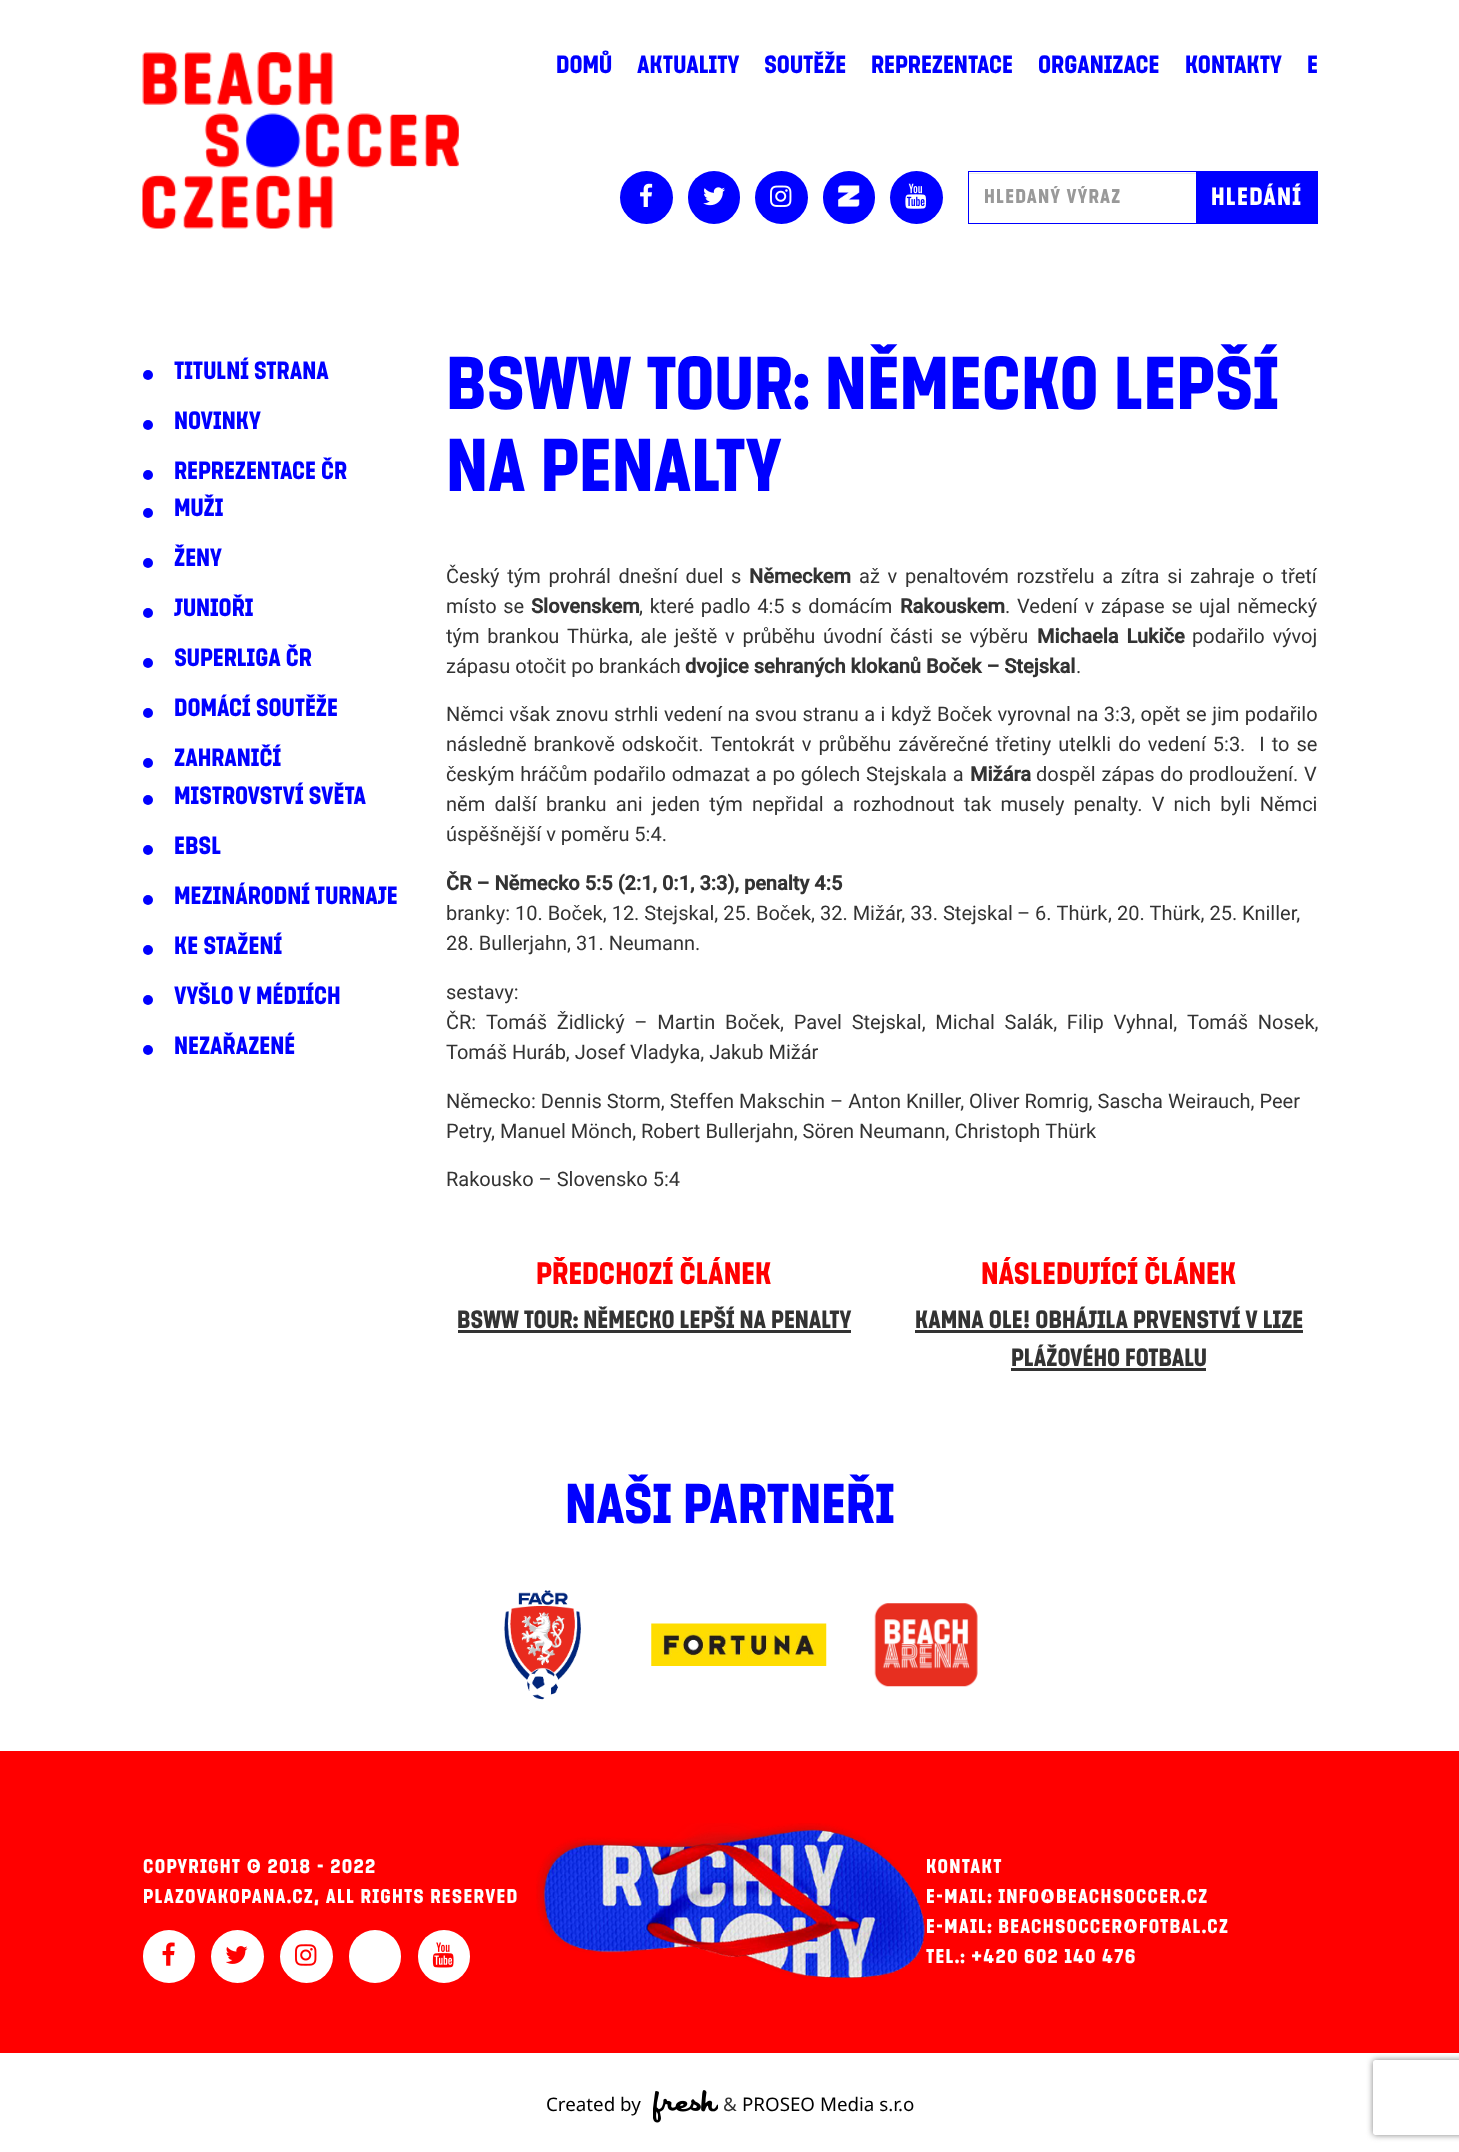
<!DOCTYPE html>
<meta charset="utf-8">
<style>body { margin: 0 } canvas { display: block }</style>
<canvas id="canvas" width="1459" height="2152"></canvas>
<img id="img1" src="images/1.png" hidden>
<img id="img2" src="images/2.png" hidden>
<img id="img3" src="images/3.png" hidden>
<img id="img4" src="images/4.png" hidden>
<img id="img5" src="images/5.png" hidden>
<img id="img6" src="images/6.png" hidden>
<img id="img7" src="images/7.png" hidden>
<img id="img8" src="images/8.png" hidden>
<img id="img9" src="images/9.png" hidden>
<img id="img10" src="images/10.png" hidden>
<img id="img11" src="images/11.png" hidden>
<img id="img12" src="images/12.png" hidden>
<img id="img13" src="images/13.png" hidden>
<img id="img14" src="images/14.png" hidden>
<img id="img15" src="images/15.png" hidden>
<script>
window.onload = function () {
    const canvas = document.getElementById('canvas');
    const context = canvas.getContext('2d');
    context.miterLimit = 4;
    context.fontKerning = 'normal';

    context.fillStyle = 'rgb(255, 255, 255)';
    context.fillRect(0, 0, 1459, 2152);
    context.drawImage(document.getElementById('img1'), 142, 52, 317, 177);
    context.fillStyle = 'rgb(0, 0, 255)';
    context.beginPath();
    context.arc(646.5, 197.5, 26.5, 0, 2 * Math.PI);
    context.fill();
    context.drawImage(document.getElementById('img2'), 640, 183, 13, 24);
    context.beginPath();
    context.roundRect(688, 171, 52, 53, 26);
    context.fill();
    context.drawImage(document.getElementById('img3'), 703, 187, 22, 19);
    context.beginPath();
    context.arc(781.5, 197.5, 26.5, 0, 2 * Math.PI);
    context.fill();
    context.drawImage(document.getElementById('img4'), 770, 185, 22, 22);
    context.beginPath();
    context.roundRect(823, 171, 52, 53, 26);
    context.fill();
    context.drawImage(document.getElementById('img5'), 838, 185, 22, 22);
    context.beginPath();
    context.arc(916.5, 197.5, 26.5, 0, 2 * Math.PI);
    context.fill();
    context.drawImage(document.getElementById('img6'), 905, 183, 22, 26);
    context.fillStyle = 'rgb(236, 236, 236)';
    context.fillRect(969, 173, 227, 1);
    context.strokeStyle = 'rgb(0, 0, 255)';
    context.strokeRect(968.5, 171.5, 229, 52);
    context.fillStyle = 'rgb(0, 0, 255)';
    context.fillRect(1196, 171, 122, 53);
    context.beginPath();
    context.arc(148, 375, 5, 0, 2 * Math.PI);
    context.fill();
    context.beginPath();
    context.arc(148, 425, 5, 0, 2 * Math.PI);
    context.fill();
    context.beginPath();
    context.arc(148, 475, 5, 0, 2 * Math.PI);
    context.fill();
    context.beginPath();
    context.arc(148, 513, 5, 0, 2 * Math.PI);
    context.fill();
    context.beginPath();
    context.arc(148, 563, 5, 0, 2 * Math.PI);
    context.fill();
    context.beginPath();
    context.arc(148, 613, 5, 0, 2 * Math.PI);
    context.fill();
    context.beginPath();
    context.arc(148, 663, 5, 0, 2 * Math.PI);
    context.fill();
    context.beginPath();
    context.arc(148, 713, 5, 0, 2 * Math.PI);
    context.fill();
    context.beginPath();
    context.arc(148, 763, 5, 0, 2 * Math.PI);
    context.fill();
    context.beginPath();
    context.arc(148, 800, 5, 0, 2 * Math.PI);
    context.fill();
    context.beginPath();
    context.arc(148, 850, 5, 0, 2 * Math.PI);
    context.fill();
    context.beginPath();
    context.arc(148, 900, 5, 0, 2 * Math.PI);
    context.fill();
    context.beginPath();
    context.arc(148, 950, 5, 0, 2 * Math.PI);
    context.fill();
    context.beginPath();
    context.arc(148, 1000, 5, 0, 2 * Math.PI);
    context.fill();
    context.beginPath();
    context.arc(148, 1050, 5, 0, 2 * Math.PI);
    context.fill();
    context.fillStyle = 'rgb(51, 51, 51)';
    context.fillRect(458, 1330, 393, 3);
    context.fillRect(915, 1330, 388, 3);
    context.fillRect(1011, 1368, 195, 3);
    context.drawImage(document.getElementById('img7'), 504, 1590, 77, 110);
    context.drawImage(document.getElementById('img8'), 651, 1623, 176, 43);
    context.drawImage(document.getElementById('img9'), 874, 1603, 104, 84);
    context.fillStyle = 'rgb(255, 0, 0)';
    context.fillRect(0, 1751, 1459, 302);
    context.fillStyle = 'rgb(255, 255, 255)';
    context.beginPath();
    context.roundRect(143, 1930, 52, 53, 26);
    context.fill();
    context.drawImage(document.getElementById('img10'), 162, 1942, 13, 24);
    context.beginPath();
    context.arc(237.5, 1956.5, 26.5, 0, 2 * Math.PI);
    context.fill();
    context.drawImage(document.getElementById('img11'), 226, 1946, 22, 18);
    context.beginPath();
    context.arc(306.5, 1956.5, 26.5, 0, 2 * Math.PI);
    context.fill();
    context.drawImage(document.getElementById('img12'), 295, 1944, 22, 22);
    context.beginPath();
    context.roundRect(349, 1930, 52, 53, 26);
    context.fill();
    context.beginPath();
    context.roundRect(418, 1930, 52, 53, 26);
    context.fill();
    context.drawImage(document.getElementById('img13'), 432, 1942, 22, 26);
    context.drawImage(document.getElementById('img14'), 536, 1823, 390, 157);
    context.drawImage(document.getElementById('img15'), 653, 2090, 65, 33);
    context.save();
    context.beginPath();
    context.moveTo(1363, 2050);
    context.lineTo(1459, 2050);
    context.lineTo(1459, 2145);
    context.lineTo(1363, 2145);
    context.closePath();
    context.moveTo(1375.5, 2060);
    context.lineTo(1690.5, 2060);
    context.bezierCurveTo(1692, 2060, 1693, 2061, 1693, 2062.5);
    context.lineTo(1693, 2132.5);
    context.bezierCurveTo(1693, 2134, 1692, 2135, 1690.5, 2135);
    context.lineTo(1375.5, 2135);
    context.bezierCurveTo(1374, 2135, 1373, 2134, 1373, 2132.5);
    context.lineTo(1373, 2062.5);
    context.bezierCurveTo(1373, 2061, 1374, 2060, 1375.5, 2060);
    context.closePath();
    context.clip('evenodd');
    context.fillStyle = 'rgb(128, 128, 128)';
    context.filter = 'blur(3px)';
    context.beginPath();
    context.roundRect(1373, 2060, 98, 75, 2.5);
    context.fill();
    context.filter = 'none';
    context.restore();
    context.font = '25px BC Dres';
    context.fillStyle = 'rgb(0, 0, 255)';
    context.fillText('DOMŮ', 556, 73);
    context.fillText('AKTUALITY', 637, 73);
    context.fillText('SOUTĚŽE', 764, 73);
    context.fillText('REPREZENTACE', 871, 73);
    context.fillText('ORGANIZACE', 1038, 73);
    context.fillText('KONTAKTY', 1185, 73);
    context.fillText('E', 1307, 73);
    context.save();
    context.beginPath();
    context.rect(984, 186, 197, 24);
    context.clip();
    context.letterSpacing = '1.25px';
    context.font = '20px BC Dres';
    context.fillStyle = 'rgb(153, 153, 153)';
    context.fillText('HLEDANÝ VÝRAZ', 984, 203);
    context.restore();
    context.letterSpacing = '1.25px';
    context.fillStyle = 'rgb(255, 255, 255)';
    context.fillText('HLEDÁNÍ', 1211, 205);
    context.letterSpacing = '0px';
    context.fillStyle = 'rgb(0, 0, 255)';
    context.fillText('TITULNÍ STRANA', 174, 379);
    context.fillText('NOVINKY', 174, 429);
    context.fillText('REPREZENTACE ČR', 174, 479);
    context.fillText('MUŽI', 174, 516);
    context.fillText('ŽENY', 174, 566);
    context.fillText('JUNIOŘI', 174, 616);
    context.fillText('SUPERLIGA ČR', 174, 666);
    context.fillText('DOMÁCÍ SOUTĚŽE', 174, 716);
    context.fillText('ZAHRANIČÍ', 174, 766);
    context.fillText('MISTROVSTVÍ SVĚTA', 174, 804);
    context.fillText('EBSL', 174, 854);
    context.fillText('MEZINÁRODNÍ TURNAJE', 174, 904);
    context.fillText('KE STAŽENÍ', 174, 954);
    context.fillText('VYŠLO V MÉDIÍCH', 174, 1004);
    context.fillText('NEZAŘAZENÉ', 174, 1054);
    context.font = '75px BC Dres';
    context.fillText('BSWW TOUR: NĚMECKO LEPŠÍ', 446, 409);
    context.fillText('NA PENALTY', 446, 491);
    context.wordSpacing = '2.75px';
    context.font = '20px Roboto';
    context.fillStyle = 'rgb(51, 51, 51)';
    context.fillText('Český tým prohrál dnešní duel s', 446, 583);
    context.wordSpacing = '0px';
    context.font = 'bold 20px Roboto';
    context.fillText('Německem', 749, 583);
    context.wordSpacing = '2.75px';
    context.font = '20px Roboto';
    context.fillText('až v penaltovém rozstřelu a zítra si zahraje o třetí', 859, 583);
    context.wordSpacing = '1.75px';
    context.fillText('místo se', 446, 613);
    context.wordSpacing = '0px';
    context.font = 'bold 20px Roboto';
    context.fillText('Slovenskem', 531, 613);
    context.wordSpacing = '1.75px';
    context.font = '20px Roboto';
    context.fillText(', které padlo 4:5 s domácím', 639, 613);
    context.wordSpacing = '0px';
    context.font = 'bold 20px Roboto';
    context.fillText('Rakouskem', 900, 613);
    context.wordSpacing = '1.75px';
    context.font = '20px Roboto';
    context.fillText('. Vedení v zápase se ujal německý', 1005, 613);
    context.wordSpacing = '2.75px';
    context.fillText('tým brankou', 446, 643);
    context.fillText('Thürka, ale ještě v průběhu úvodní části se výběru', 567, 643);
    context.wordSpacing = '3px';
    context.font = 'bold 20px Roboto';
    context.fillText('Michaela Lukiče', 1037, 643);
    context.wordSpacing = '2.75px';
    context.font = '20px Roboto';
    context.fillText('podařilo vývoj', 1192, 643);
    context.wordSpacing = '0px';
    context.fillText('zápasu otočit po brankách', 446, 673);
    context.font = 'bold 20px Roboto';
    context.fillText('dvojice sehraných klokanů Boček – Stejskal', 685, 673);
    context.font = '20px Roboto';
    context.fillText('.', 1076, 673);
    context.wordSpacing = '0.5px';
    context.fillText('Němci však znovu strhli vedení na svou stranu a i když Boček vyrovnal na 3:3, opět se jim podařilo', 446, 721);
    context.wordSpacing = '2px';
    context.fillText('následně brankově odskočit. Tentokrát v průběhu závěrečné třetiny utelkli do vedení 5:3.  I to se', 446, 751);
    context.wordSpacing = '0.75px';
    context.fillText('českým hráčům podařilo odmazat a po gólech Stejskala a', 446, 781);
    context.wordSpacing = '0px';
    context.font = 'bold 20px Roboto';
    context.fillText('Mižára', 970, 781);
    context.wordSpacing = '0.75px';
    context.font = '20px Roboto';
    context.fillText('dospěl zápas do prodloužení. V', 1036, 781);
    context.wordSpacing = '4.25px';
    context.fillText('něm další branku ani jeden tým nepřidal', 446, 811);
    context.fillText('a rozhodnout tak musely penalty. V nich byli Němci', 833, 811);
    context.wordSpacing = '0px';
    context.fillText('úspěšnější v poměru 5:4.', 446, 841);
    context.font = 'bold 20px Roboto';
    context.fillText('ČR – Německo 5:5 (2:1, 0:1, 3:3), penalty 4:5', 446, 890);
    context.font = '20px Roboto';
    context.fillText('branky: 10. Boček, 12. Stejskal, 25. Boček, 32. Mižár, 33. Stejskal', 446, 920);
    context.fillText('– 6. Thürk', 1017, 920);
    context.fillText(', 20. Thürk, 25. Kniller,', 1108, 920);
    context.fillText('28. Bullerjahn, 31. Neumann.', 446, 950);
    context.fillText('sestavy:', 446, 999);
    context.wordSpacing = '4.75px';
    context.fillText('ČR: Tomáš Židlický – Martin Boček, Pavel Stejskal, Michal Salák, Filip Vyhnal, Tomáš Nosek,', 446, 1029);
    context.wordSpacing = '0px';
    context.fillText('Tomáš Huráb, Josef Vladyka, Jakub Mižár', 446, 1059);
    context.fillText('Německo: Dennis Storm, Steffen Makschin – Anton Kniller, Oliver Romrig, Sascha Weirauch, Peer', 446, 1108);
    context.fillText('Petry, Manuel Mönch, Robert Bullerjahn, Sören Neumann, Christoph Thürk', 446, 1138);
    context.fillText('Rakousko – Slovensko 5:4', 446, 1186);
    context.font = '31.25px BC Dres';
    context.fillStyle = 'rgb(255, 0, 0)';
    context.fillText('PŘEDCHOZÍ ČLÁNEK', 536, 1284);
    context.font = '25px BC Dres';
    context.fillStyle = 'rgb(51, 51, 51)';
    context.fillText('BSWW TOUR: NĚMECKO LEPŠÍ NA PENALTY', 457, 1328);
    context.font = '31.25px BC Dres';
    context.fillStyle = 'rgb(255, 0, 0)';
    context.fillText('NÁSLEDUJÍCÍ ČLÁNEK', 981, 1284);
    context.font = '25px BC Dres';
    context.fillStyle = 'rgb(51, 51, 51)';
    context.fillText('KAMNA OLE! OBHÁJILA PRVENSTVÍ V LIZE', 915, 1328);
    context.fillText('PLÁŽOVÉHO FOTBALU', 1011, 1366);
    context.font = '56.25px BC Dres';
    context.fillStyle = 'rgb(0, 0, 255)';
    context.fillText('NAŠI PARTNEŘI', 565, 1523);
    context.letterSpacing = '1.25px';
    context.font = '20px BC Dres';
    context.fillStyle = 'rgb(255, 255, 255)';
    context.fillText('COPYRIGHT © 2018 - 2022', 143, 1873);
    context.fillText('PLAZOVAKOPANA.CZ, ALL RIGHTS RESERVED', 143, 1903);
    context.fillText('KONTAKT', 926, 1873);
    context.fillText('E-MAIL: INFO@BEACHSOCCER.CZ', 926, 1903);
    context.fillText('E-MAIL: BEACHSOCCER@FOTBAL.CZ', 926, 1933);
    context.fillText('TEL.: +420 602 140 476', 926, 1963);
    context.letterSpacing = '0px';
    context.font = '18.75px Noto Sans';
    context.fillStyle = 'rgb(0, 0, 0)';
    context.fillText('Created by', 546, 2111);
    context.fillStyle = 'rgb(51, 51, 51)';
    context.fillText('&', 723, 2111);
    context.fillStyle = 'rgb(0, 0, 0)';
    context.fillText('PROSEO Media s.r.o', 742, 2111);
};
</script>
